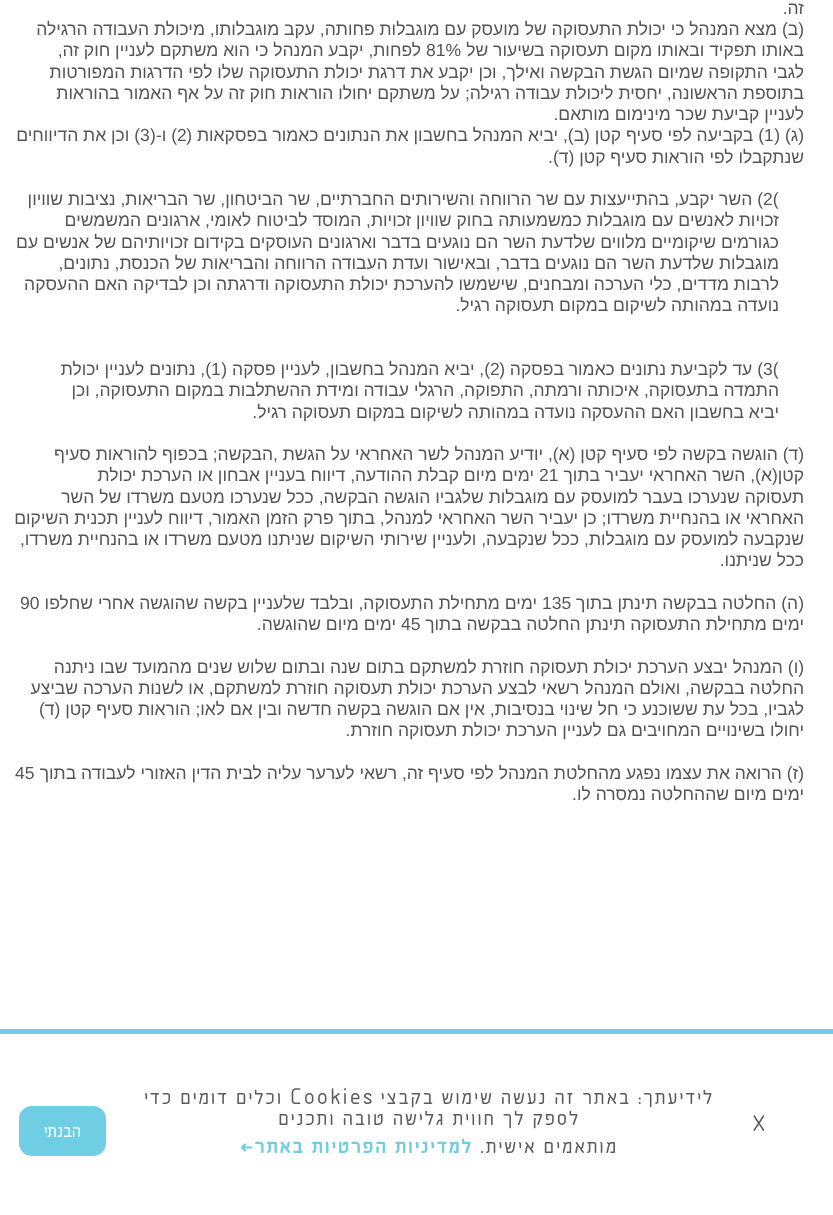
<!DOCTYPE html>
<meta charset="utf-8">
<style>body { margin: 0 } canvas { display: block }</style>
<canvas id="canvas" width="833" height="1215"></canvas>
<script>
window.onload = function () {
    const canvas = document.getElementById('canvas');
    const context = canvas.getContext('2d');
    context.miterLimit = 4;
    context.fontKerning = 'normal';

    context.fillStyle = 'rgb(255, 255, 255)';
    context.fillRect(0, 0, 833, 1215);
    context.fillStyle = 'rgb(111, 206, 228)';
    context.fillRect(0, 1029, 833, 5);
    context.beginPath();
    context.roundRect(19, 1106, 87, 50, 13);
    context.fill();
    context.direction = 'rtl';
    context.font = '17.5px Liberation Sans';
    context.fillStyle = 'rgb(86, 86, 86)';
    context.fillText('זה.', 804, 14);
    context.fillText('(ב) מצא המנהל כי יכולת התעסוקה של מועסק עם מוגבלות פחותה, עקב מוגבלותו, מיכולת העבודה הרגילה', 804, 35);
    context.fillText('באותו תפקיד ובאותו מקום תעסוקה בשיעור של', 804, 56);
    context.direction = 'ltr';
    context.fillText('81%', 426, 56);
    context.direction = 'rtl';
    context.fillText('לפחות, יקבע המנהל כי הוא משתקם לעניין חוק זה,', 421, 56);
    context.fillText('לגבי התקופה שמיום הגשת הבקשה ואילך, וכן יקבע את דרגת יכולת התעסוקה שלו לפי הדרגות המפורטות', 804, 78);
    context.fillText('בתוספת הראשונה, יחסית ליכולת עבודה רגילה; על משתקם יחולו הוראות חוק זה על אף האמור בהוראות', 804, 99);
    context.fillText('לעניין קביעת שכר מינימום מותאם.', 804, 120);
    context.fillText('(ג) (', 804, 141);
    context.direction = 'ltr';
    context.fillText('1', 764, 141);
    context.direction = 'rtl';
    context.fillText(') בקביעה לפי סעיף קטן (ב), יביא המנהל בחשבון את הנתונים כאמור בפסקאות (', 764, 141);
    context.direction = 'ltr';
    context.fillText('2', 177, 141);
    context.direction = 'rtl';
    context.fillText(') ו-(', 177, 141);
    context.direction = 'ltr';
    context.fillText('3', 140, 141);
    context.direction = 'rtl';
    context.fillText(') וכן את הדיווחים', 140, 141);
    context.fillText('שנתקבלו לפי הוראות סעיף קטן (ד).', 804, 163);
    context.direction = 'ltr';
    context.fillText('2(', 763, 205);
    context.direction = 'rtl';
    context.fillText(') השר יקבע, בהתייעצות עם שר הרווחה והשירותים החברתיים, שר הביטחון, שר הבריאות, נציבות שוויון', 763, 205);
    context.fillText('זכויות לאנשים עם מוגבלות כמשמעותה בחוק שוויון זכויות, המוסד לביטוח לאומי, ארגונים המשמשים', 779, 226);
    context.fillText('כגורמים שיקומיים מלווים שלדעת השר הם נוגעים בדבר וארגונים העוסקים בקידום זכויותיהם של אנשים עם', 779, 248);
    context.fillText('מוגבלות שלדעת השר הם נוגעים בדבר, ובאישור ועדת העבודה הרווחה והבריאות של הכנסת, נתונים,', 779, 269);
    context.fillText('לרבות מדדים, כלי הערכה ומבחנים, שישמשו להערכת יכולת התעסוקה ודרגתה וכן לבדיקה האם ההעסקה', 779, 290);
    context.fillText('נועדה במהותה לשיקום במקום תעסוקה רגיל.', 779, 311);
    context.direction = 'ltr';
    context.fillText('3(', 763, 375);
    context.direction = 'rtl';
    context.fillText(') עד לקביעת נתונים כאמור בפסקה (', 763, 375);
    context.direction = 'ltr';
    context.fillText('2', 490, 375);
    context.direction = 'rtl';
    context.fillText('), יביא המנהל בחשבון, לעניין פסקה (', 490, 375);
    context.direction = 'ltr';
    context.fillText('1', 211, 375);
    context.direction = 'rtl';
    context.fillText('), נתונים לעניין יכולת', 211, 375);
    context.fillText('התמדה בתעסוקה, איכותה ורמתה, התפוקה, הרגלי עבודה ומידת ההשתלבות במקום התעסוקה, וכן', 779, 396);
    context.fillText('יביא בחשבון האם ההעסקה נועדה במהותה לשיקום במקום תעסוקה רגיל.', 779, 418);
    context.fillText('(ד) הוגשה בקשה לפי סעיף קטן (א), יודיע המנהל לשר האחראי על הגשת ,', 804, 460);
    context.fillText('הבקשה; בכפוף להוראות סעיף', 273, 460);
    context.fillText('קטן(א), השר האחראי יעביר בתוך', 804, 481);
    context.direction = 'ltr';
    context.fillText('21', 539, 481);
    context.direction = 'rtl';
    context.fillText('ימים מיום קבלת ההודעה, דיווח בעניין אבחון או הערכת יכולת', 534, 481);
    context.fillText('תעסוקה שנערכו בעבר למועסק עם מוגבלות שלגביו הוגשה הבקשה, ככל שנערכו מטעם משרדו של השר', 804, 503);
    context.fillText('האחראי או בהנחיית משרדו; כן יעביר השר האחראי למנהל, בתוך פרק הזמן האמור, דיווח לעניין תכנית השיקום', 804, 524);
    context.fillText('שנקבעה למועסק עם מוגבלות, ככל שנקבעה, ולעניין שירותי השיקום שניתנו מטעם משרדו או בהנחיית משרדו,', 804, 545);
    context.fillText('ככל שניתנו.', 804, 566);
    context.fillText('(ה) החלטה בבקשה תינתן בתוך', 804, 609);
    context.direction = 'ltr';
    context.fillText('135', 542, 609);
    context.direction = 'rtl';
    context.fillText('ימים מתחילת התעסוקה, ובלבד שלעניין בקשה שהוגשה אחרי שחלפו', 537, 609);
    context.direction = 'ltr';
    context.fillText('90', 20, 609);
    context.direction = 'rtl';
    context.fillText('ימים מתחילת התעסוקה תינתן החלטה בבקשה בתוך', 804, 630);
    context.direction = 'ltr';
    context.fillText('45', 401, 630);
    context.direction = 'rtl';
    context.fillText('ימים מיום שהוגשה.', 396, 630);
    context.fillText('(ו) המנהל יבצע הערכת יכולת תעסוקה חוזרת למשתקם בתום שנה ובתום שלוש שנים מהמועד שבו ניתנה', 804, 673);
    context.fillText('החלטה בבקשה, ואולם המנהל רשאי לבצע הערכת יכולת תעסוקה חוזרת למשתקם, או לשנות הערכה שביצע', 804, 694);
    context.fillText('לגביו, בכל עת ששוכנע כי חל שינוי בנסיבות, אין אם הוגשה בקשה חדשה ובין אם לאו; הוראות סעיף קטן (ד)', 804, 715);
    context.fillText('יחולו בשינויים המחויבים גם לעניין הערכת יכולת תעסוקה חוזרת.', 804, 736);
    context.fillText('(ז) הרואה את עצמו נפגע מהחלטת המנהל לפי סעיף זה, רשאי לערער עליה לבית הדין האזורי לעבודה בתוך', 804, 779);
    context.direction = 'ltr';
    context.fillText('45', 15, 779);
    context.direction = 'rtl';
    context.fillText('ימים מיום שההחלטה נמסרה לו.', 804, 800);
    context.letterSpacing = '1.9px';
    context.direction = 'ltr';
    context.font = '22.5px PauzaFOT';
    context.fillStyle = 'rgb(91, 92, 94)';
    context.fillText('X', 753, 1131);
    context.direction = 'rtl';
    context.fillText('לידיעתך: באתר זה נעשה שימוש בקבצי', 714, 1104);
    context.direction = 'ltr';
    context.fillText('Cookies', 290, 1104);
    context.direction = 'rtl';
    context.fillText('וכלים דומים כדי', 283, 1104);
    context.fillText('לספק לך חווית גלישה טובה ותכנים', 580, 1125);
    context.fillText('מותאמים אישית.', 618, 1153);
    context.font = '22.5px "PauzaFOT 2"';
    context.fillStyle = 'rgb(111, 206, 228)';
    context.fillText('למדיניות הפרטיות באתר>', 473, 1153);
    context.letterSpacing = '0px';
    context.font = '20px PauzaFOT';
    context.fillStyle = 'rgb(255, 255, 255)';
    context.fillText('הבנתי', 81, 1137);
};
</script>
